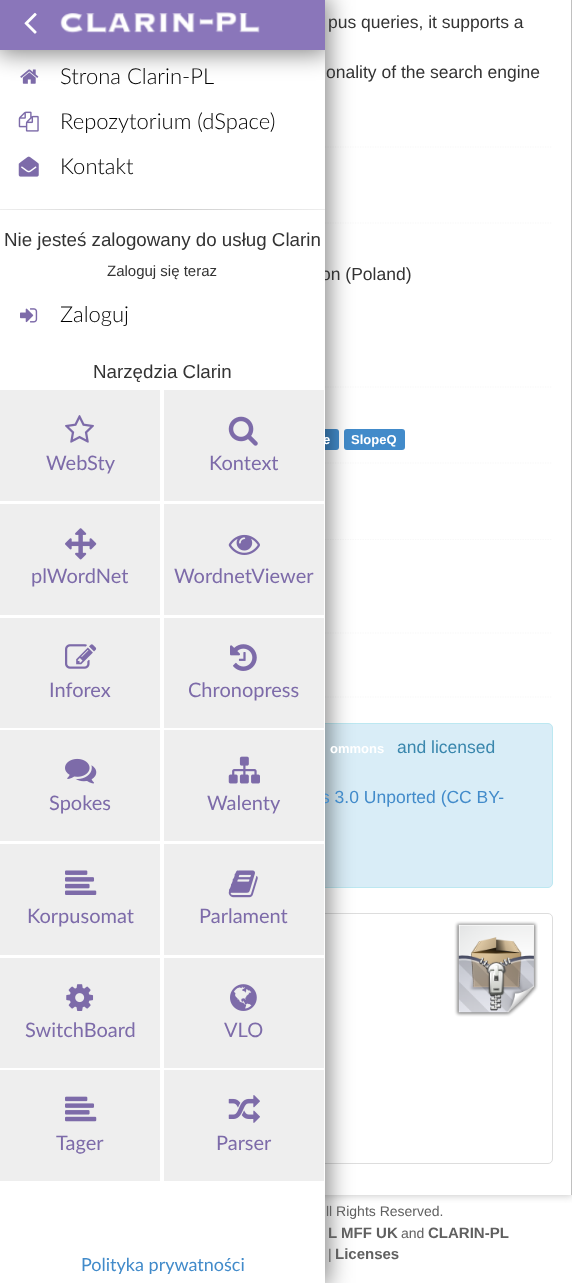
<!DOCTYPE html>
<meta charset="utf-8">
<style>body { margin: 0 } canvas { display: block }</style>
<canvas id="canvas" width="572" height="1283"></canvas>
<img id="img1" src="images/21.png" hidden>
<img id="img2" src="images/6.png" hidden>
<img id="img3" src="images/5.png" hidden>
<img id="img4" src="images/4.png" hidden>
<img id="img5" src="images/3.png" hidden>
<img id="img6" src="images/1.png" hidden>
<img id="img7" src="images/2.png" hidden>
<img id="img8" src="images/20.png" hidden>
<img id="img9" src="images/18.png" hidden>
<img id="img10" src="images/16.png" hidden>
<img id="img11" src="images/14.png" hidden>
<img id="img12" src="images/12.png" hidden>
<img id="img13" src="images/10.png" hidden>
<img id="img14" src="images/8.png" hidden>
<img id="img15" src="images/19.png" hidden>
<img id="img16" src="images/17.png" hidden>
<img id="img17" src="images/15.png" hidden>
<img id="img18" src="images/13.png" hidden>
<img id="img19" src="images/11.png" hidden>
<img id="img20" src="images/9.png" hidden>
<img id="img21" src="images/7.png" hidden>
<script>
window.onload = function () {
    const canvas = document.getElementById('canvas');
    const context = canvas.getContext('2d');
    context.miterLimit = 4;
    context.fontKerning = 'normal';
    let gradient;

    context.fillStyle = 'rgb(255, 255, 255)';
    context.fillRect(0, 0, 572, 1283);
    context.save();
    context.beginPath();
    context.rect(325, 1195, 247, 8);
    context.clip();
    context.fillStyle = 'rgb(192, 192, 192)';
    context.filter = 'blur(4px)';
    context.beginPath();
    context.rect(0, -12, 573, 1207);
    context.fill();
    context.filter = 'none';
    context.restore();
    context.beginPath();
    context.moveTo(20, 147);
    context.lineTo(552.5, 147);
    context.strokeStyle = 'rgb(248, 248, 248)';
    context.lineWidth = 1.2;
    context.setLineDash([1.25, 1.25]);
    context.stroke();
    context.beginPath();
    context.moveTo(20, 223);
    context.lineTo(552.5, 223);
    context.stroke();
    context.beginPath();
    context.moveTo(20, 387);
    context.lineTo(552.5, 387);
    context.stroke();
    context.beginPath();
    context.moveTo(20, 463);
    context.lineTo(552.5, 463);
    context.stroke();
    context.fillStyle = 'rgb(66, 139, 202)';
    context.beginPath();
    context.roundRect(188, 429, 151, 21, 3);
    context.fill();
    context.beginPath();
    context.roundRect(344, 429, 61, 21, 3);
    context.fill();
    context.beginPath();
    context.moveTo(20, 539.5);
    context.lineTo(552.5, 539.5);
    context.stroke();
    context.beginPath();
    context.moveTo(20, 633);
    context.lineTo(552.5, 633);
    context.stroke();
    context.beginPath();
    context.moveTo(20, 697);
    context.lineTo(552.5, 697);
    context.stroke();
    context.fillStyle = 'rgb(217, 237, 247)';
    context.beginPath();
    context.roundRect(20.5, 723.5, 532, 164, 4.5);
    context.fill();
    context.strokeStyle = 'rgb(188, 232, 241)';
    context.lineWidth = 1;
    context.setLineDash([]);
    context.stroke();
    context.beginPath();
    context.roundRect(20.5, 913.5, 532, 250, 4.5);
    context.strokeStyle = 'rgb(221, 221, 221)';
    context.stroke();
    context.fillStyle = 'rgba(0, 0, 0, 0.5)';
    context.filter = 'blur(12.5px)';
    context.beginPath();
    context.rect(-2, -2, 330, 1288);
    context.fill();
    context.filter = 'none';
    context.fillStyle = 'rgb(192, 192, 192)';
    context.fillRect(571, 0, 1, 1195);
    context.drawImage(document.getElementById('img1'), 454, 921, 84, 96);
    context.font = '17.5px Liberation Sans';
    context.fillStyle = 'rgb(51, 51, 51)';
    context.fillText('pus queries, it supports a', 328, 28);
    context.fillText('onality of the search engine', 326, 78);
    context.fillText('on (Poland)', 321, 280);
    context.font = 'bold 13px Liberation Sans';
    context.fillStyle = 'rgb(255, 255, 255)';
    context.fillText('e', 323, 444);
    context.fillText('SlopeQ', 351, 444);
    context.fillText('ommons', 330, 753);
    context.font = '17.5px Liberation Sans';
    context.fillStyle = 'rgb(58, 135, 173)';
    context.fillText('and licensed', 397, 753);
    context.fillStyle = 'rgb(66, 139, 202)';
    context.fillText('s 3.0 Unported (CC BY-', 321, 803);
    context.fillStyle = 'rgb(255, 255, 255)';
    context.fillRect(0, 50, 325, 1233);
    context.font = '300 22px Lato';
    context.fillStyle = 'rgb(0, 0, 0)';
    context.fillText('Zaloguj', 60, 322);
    context.drawImage(document.getElementById('img2'), 20, 308, 18, 15);
    context.fillText('Kontakt', 60, 174);
    context.drawImage(document.getElementById('img3'), 18, 156, 21, 21);
    context.fillText('Repozytorium (dSpace)', 60, 129);
    context.drawImage(document.getElementById('img4'), 18, 111, 21, 21);
    context.save();
    context.beginPath();
    context.rect(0, 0, 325, 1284);
    context.clip();
    context.fillStyle = 'rgba(0, 0, 0, 0.5)';
    context.filter = 'blur(12.5px)';
    context.beginPath();
    context.rect(-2, -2, 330, 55);
    context.fill();
    context.filter = 'none';
    context.restore();
    context.fillText('Strona Clarin-PL', 60, 84);
    context.drawImage(document.getElementById('img5'), 20, 69, 19, 15);
    context.font = '18px Lato';
    context.fillStyle = 'rgb(66, 139, 202)';
    context.fillText('Polityka prywatności', 81, 1271);
    context.fillStyle = 'rgb(138, 118, 186)';
    context.fillRect(0, 0, 325, 50);
    context.drawImage(document.getElementById('img6'), 24, 12, 13, 22);
    context.drawImage(document.getElementById('img7'), 60, 12, 200, 22);
    context.fillStyle = 'rgb(238, 238, 238)';
    context.fillRect(164, 1070, 160, 111);
    context.font = '20px Lato';
    context.fillStyle = 'rgb(125, 107, 169)';
    context.fillText('Parser', 216, 1150);
    context.drawImage(document.getElementById('img8'), 228, 1095, 32, 28);
    context.fillStyle = 'rgb(238, 238, 238)';
    context.fillRect(164, 958, 160, 110);
    context.fillStyle = 'rgb(125, 107, 169)';
    context.fillText('VLO', 224, 1037);
    context.drawImage(document.getElementById('img9'), 230, 984, 27, 27);
    context.fillStyle = 'rgb(238, 238, 238)';
    context.fillRect(164, 844, 160, 111);
    context.fillStyle = 'rgb(125, 107, 169)';
    context.fillText('Parlament', 199, 923);
    context.drawImage(document.getElementById('img10'), 228, 870, 30, 28);
    context.fillStyle = 'rgb(238, 238, 238)';
    context.fillRect(164, 730, 160, 111);
    context.fillStyle = 'rgb(125, 107, 169)';
    context.fillText('Walenty', 207, 810);
    context.drawImage(document.getElementById('img11'), 228, 756, 32, 28);
    context.fillStyle = 'rgb(238, 238, 238)';
    context.fillRect(164, 618, 160, 110);
    context.fillStyle = 'rgb(125, 107, 169)';
    context.fillText('Chronopress', 188, 697);
    context.drawImage(document.getElementById('img12'), 230, 644, 27, 27);
    context.fillStyle = 'rgb(238, 238, 238)';
    context.fillRect(164, 504, 160, 111);
    context.fillStyle = 'rgb(125, 107, 169)';
    context.fillText('WordnetViewer', 174, 583);
    context.drawImage(document.getElementById('img13'), 228, 534, 32, 21);
    context.fillStyle = 'rgb(238, 238, 238)';
    context.fillRect(164, 390, 160, 111);
    context.fillStyle = 'rgb(125, 107, 169)';
    context.fillText('Kontext', 209, 470);
    context.drawImage(document.getElementById('img14'), 228, 416, 30, 30);
    context.fillStyle = 'rgb(238, 238, 238)';
    context.fillRect(0, 1070, 160, 111);
    context.fillStyle = 'rgb(125, 107, 169)';
    context.fillText('Tager', 56, 1150);
    context.drawImage(document.getElementById('img15'), 65, 1096, 32, 26);
    context.fillStyle = 'rgb(238, 238, 238)';
    context.fillRect(0, 958, 160, 110);
    context.fillStyle = 'rgb(125, 107, 169)';
    context.fillText('SwitchBoard', 25, 1037);
    context.drawImage(document.getElementById('img16'), 66, 984, 28, 27);
    context.fillStyle = 'rgb(238, 238, 238)';
    context.fillRect(0, 844, 160, 111);
    context.fillStyle = 'rgb(125, 107, 169)';
    context.fillText('Korpusomat', 27, 923);
    context.drawImage(document.getElementById('img17'), 65, 870, 32, 25);
    context.fillStyle = 'rgb(238, 238, 238)';
    context.fillRect(0, 730, 160, 111);
    context.fillStyle = 'rgb(125, 107, 169)';
    context.fillText('Spokes', 49, 810);
    context.drawImage(document.getElementById('img18'), 65, 758, 32, 26);
    context.fillStyle = 'rgb(238, 238, 238)';
    context.fillRect(0, 618, 160, 110);
    context.fillStyle = 'rgb(125, 107, 169)';
    context.fillText('Inforex', 49, 697);
    context.drawImage(document.getElementById('img19'), 65, 644, 32, 25);
    context.fillStyle = 'rgb(238, 238, 238)';
    context.fillRect(0, 504, 160, 111);
    context.fillStyle = 'rgb(125, 107, 169)';
    context.fillText('plWordNet', 31, 583);
    context.drawImage(document.getElementById('img20'), 65, 528, 32, 32);
    context.fillStyle = 'rgb(238, 238, 238)';
    context.fillRect(0, 390, 160, 111);
    context.fillStyle = 'rgb(125, 107, 169)';
    context.fillText('WebSty', 46, 470);
    context.drawImage(document.getElementById('img21'), 65, 415, 29, 28);
    context.font = '18.75px Liberation Sans';
    context.fillStyle = 'rgb(51, 51, 51)';
    context.fillText('Narzędzia Clarin', 93, 378);
    gradient = context.createLinearGradient(0, 209, 325, 209);
    gradient.addColorStop(0, 'rgb(238, 238, 238)');
    gradient.addColorStop(0.5, 'rgb(204, 204, 204)');
    gradient.addColorStop(1, 'rgb(238, 238, 238)');
    context.fillStyle = gradient;
    context.fillRect(0, 209, 325, 1);
    context.font = '15px Liberation Sans';
    context.fillStyle = 'rgb(51, 51, 51)';
    context.fillText('Zaloguj się teraz', 107, 276);
    context.font = '18.75px Liberation Sans';
    context.fillText('Nie jesteś zalogowany do usług Clarin', 4, 246);
    context.font = '14px Liberation Sans';
    context.fillStyle = 'rgb(96, 96, 96)';
    context.fillText('ll Rights Reserved.', 326, 1216);
    context.font = 'bold 15px Liberation Sans';
    context.fillText('L MFF UK', 328, 1238);
    context.font = '14px Liberation Sans';
    context.fillText('and', 401, 1238);
    context.font = 'bold 15px Liberation Sans';
    context.fillText('CLARIN-PL', 428, 1238);
    context.font = '14px Liberation Sans';
    context.fillText('|', 328, 1259);
    context.font = 'bold 15px Liberation Sans';
    context.fillText('Licenses', 335, 1259);
};
</script>
